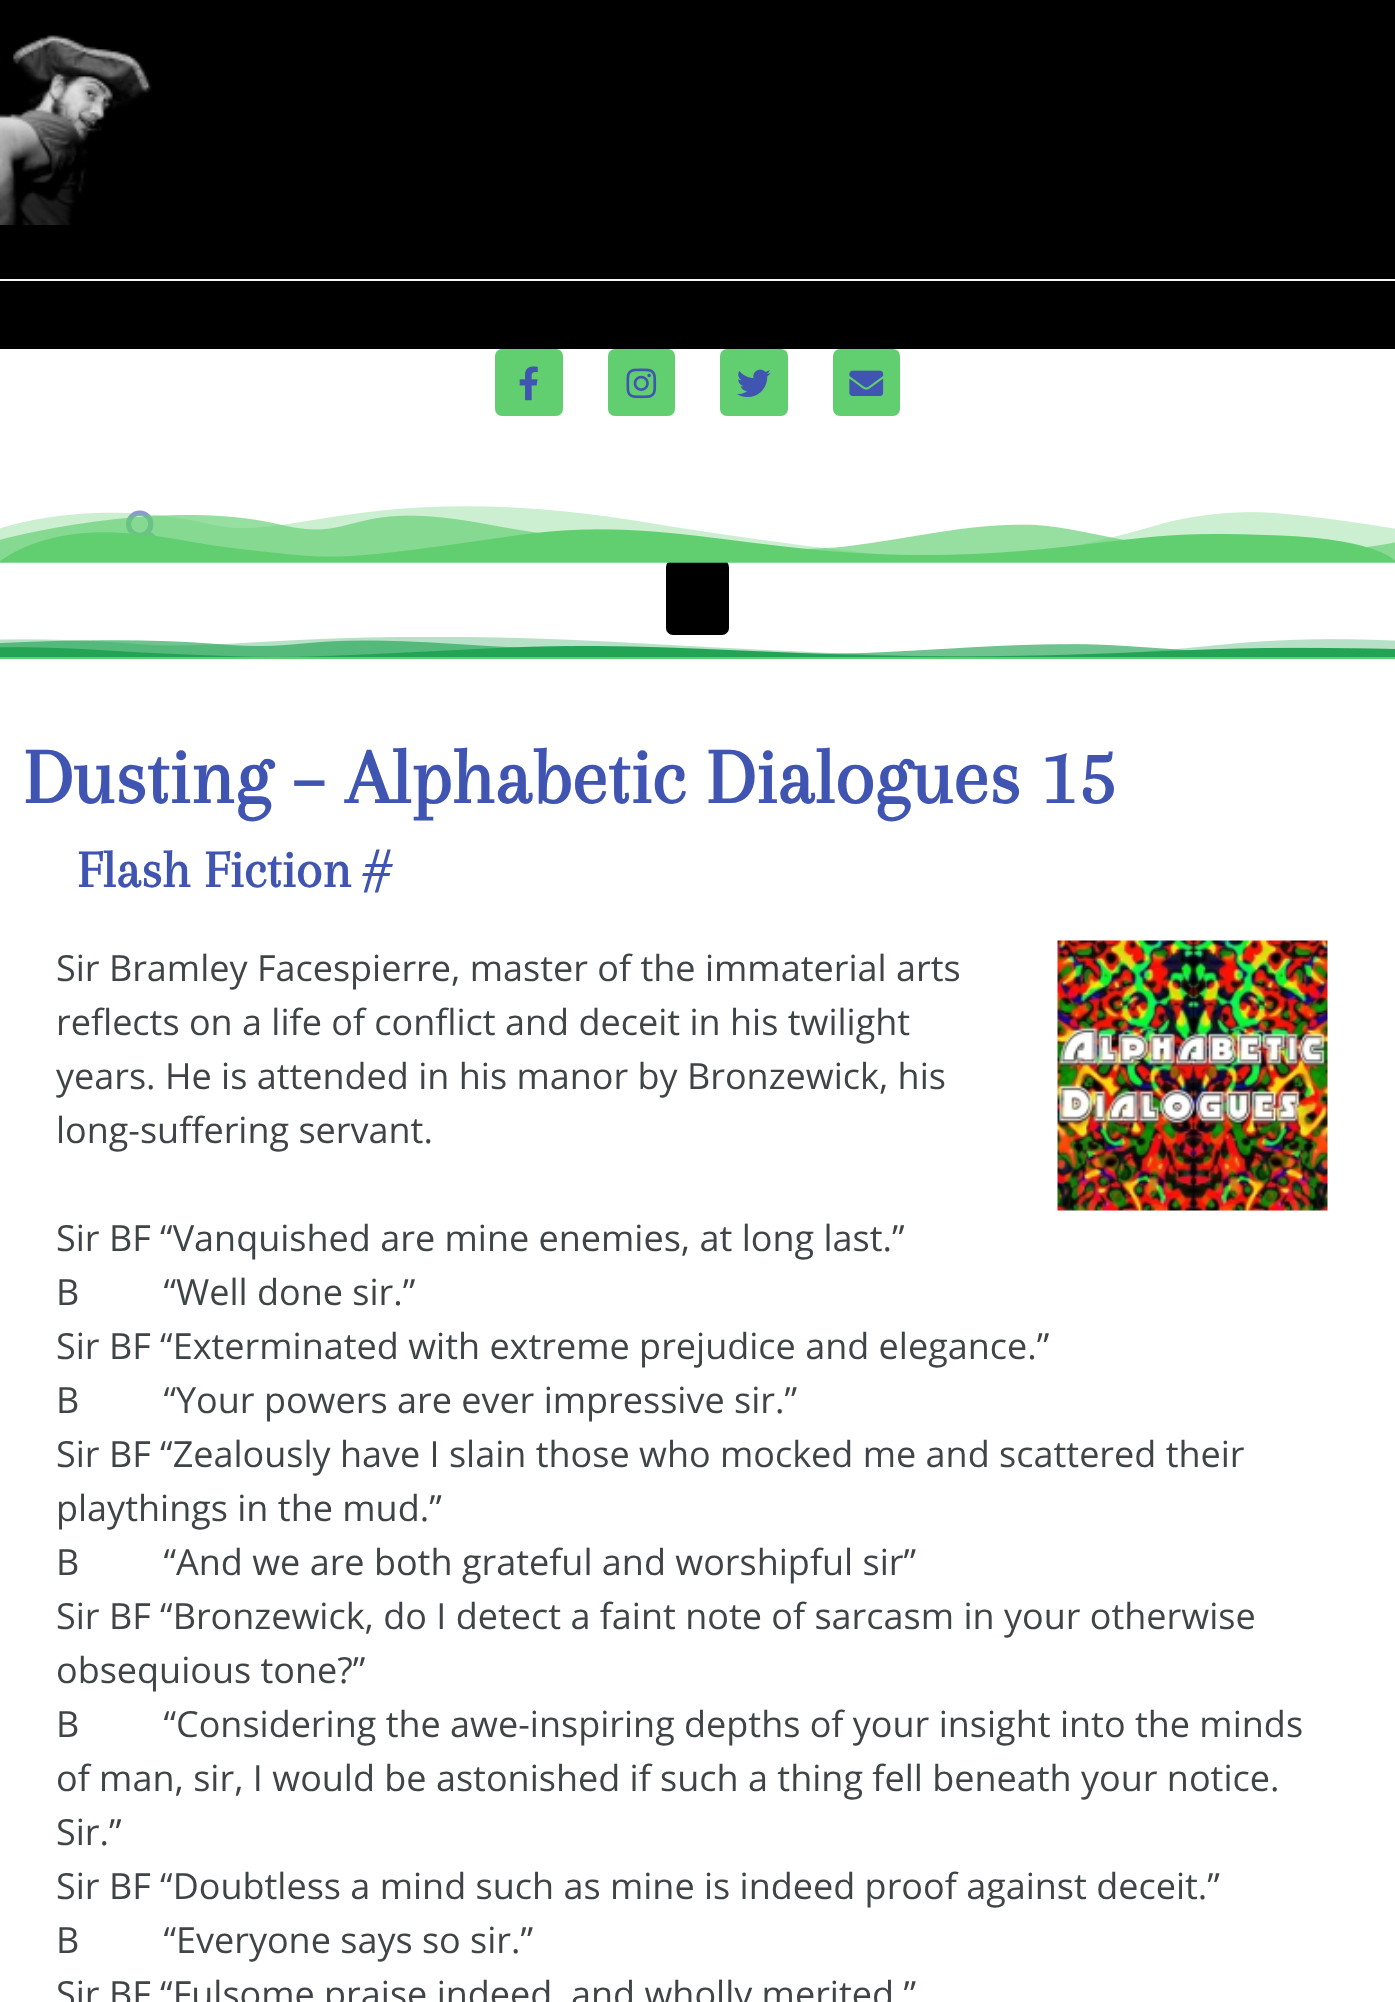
<!DOCTYPE html>
<meta charset="utf-8">
<style>body { margin: 0 } canvas { display: block }</style>
<canvas id="canvas" width="1395" height="2002"></canvas>
<img id="img1" src="images/1.png" hidden>
<img id="img2" src="images/2.png" hidden>
<img id="img3" src="images/3.png" hidden>
<img id="img4" src="images/4.png" hidden>
<img id="img5" src="images/5.png" hidden>
<img id="img6" src="images/6.png" hidden>
<img id="img7" src="images/7.png" hidden>
<img id="img8" src="images/8.png" hidden>
<img id="img9" src="images/9.png" hidden>
<script>
window.onload = function () {
    const canvas = document.getElementById('canvas');
    const context = canvas.getContext('2d');
    context.miterLimit = 4;
    context.fontKerning = 'normal';

    context.fillStyle = 'rgb(255, 255, 255)';
    context.fillRect(0, 0, 1395, 2002);
    context.fillStyle = 'rgb(97, 206, 112)';
    context.fillRect(0, 657, 1395, 2);
    context.fillStyle = 'rgb(0, 0, 0)';
    context.fillRect(0, 0, 1395, 349);
    context.drawImage(document.getElementById('img1'), 0, 35, 152, 190);
    context.fillStyle = 'rgb(248, 248, 248)';
    context.fillRect(0, 279, 1395, 2);
    context.fillStyle = 'rgb(97, 206, 112)';
    context.beginPath();
    context.roundRect(495, 349, 68, 67, 7);
    context.fill();
    context.drawImage(document.getElementById('img2'), 519, 366, 19, 35);
    context.beginPath();
    context.roundRect(608, 349, 67, 67, 7);
    context.fill();
    context.drawImage(document.getElementById('img3'), 626, 368, 31, 31);
    context.beginPath();
    context.roundRect(720, 349, 68, 67, 7);
    context.fill();
    context.drawImage(document.getElementById('img4'), 737, 369, 34, 29);
    context.beginPath();
    context.roundRect(833, 349, 67, 67, 7);
    context.fill();
    context.drawImage(document.getElementById('img5'), 849, 370, 35, 26);
    context.drawImage(document.getElementById('img6'), 126, 510, 31, 27);
    context.fillStyle = 'rgb(0, 0, 0)';
    context.beginPath();
    context.roundRect(666, 560, 63, 75, 7);
    context.fill();
    context.drawImage(document.getElementById('img7'), 0, 506, 1395, 57);
    context.drawImage(document.getElementById('img8'), 0, 637, 1395, 20);
    context.drawImage(document.getElementById('img9'), 1057, 940, 271, 271);
    context.font = 'bold 81px Arapey';
    context.fillStyle = 'rgb(64, 84, 178)';
    context.fillText('Dusting – Alphabetic Dialogues 15', 23, 803);
    context.font = 'bold 54px Arapey';
    context.fillText('Flash Fiction #', 77, 887);
    context.font = '36px Open Sans';
    context.fillStyle = 'rgb(63, 69, 71)';
    context.fillText('Sir Bramley Facespierre, master of the immaterial arts', 56, 981);
    context.fillText('reflects on a life of conflict and deceit in his twilight', 56, 1035);
    context.fillText('years. He is attended in his manor by Bronzewick, his', 56, 1089);
    context.fillText('long-suffering servant.', 56, 1143);
    context.fillText('Sir BF “Vanquished are mine enemies, at long last.”', 56, 1251);
    context.fillText('B         “Well done sir.”', 56, 1305);
    context.fillText('Sir BF “Exterminated with extreme prejudice and elegance.”', 56, 1359);
    context.fillText('B         “Your powers are ever impressive sir.”', 56, 1413);
    context.fillText('Sir BF “Zealously have I slain those who mocked me and scattered their', 56, 1467);
    context.fillText('playthings in the mud.”', 56, 1521);
    context.fillText('B         “And we are both grateful and worshipful sir”', 56, 1575);
    context.fillText('Sir BF “Bronzewick, do I detect a faint note of sarcasm in your otherwise', 56, 1629);
    context.fillText('obsequious tone?”', 56, 1683);
    context.fillText('B         “Considering the awe-inspiring depths of your insight into the minds', 56, 1737);
    context.fillText('of man, sir, I would be astonished if such a thing fell beneath your notice.', 56, 1791);
    context.fillText('Sir.”', 56, 1845);
    context.fillText('Sir BF “Doubtless a mind such as mine is indeed proof against deceit.”', 56, 1899);
    context.fillText('B         “Everyone says so sir.”', 56, 1953);
    context.fillText('Sir BF “Fulsome praise indeed, and wholly merited.”', 56, 2007);
};
</script>
